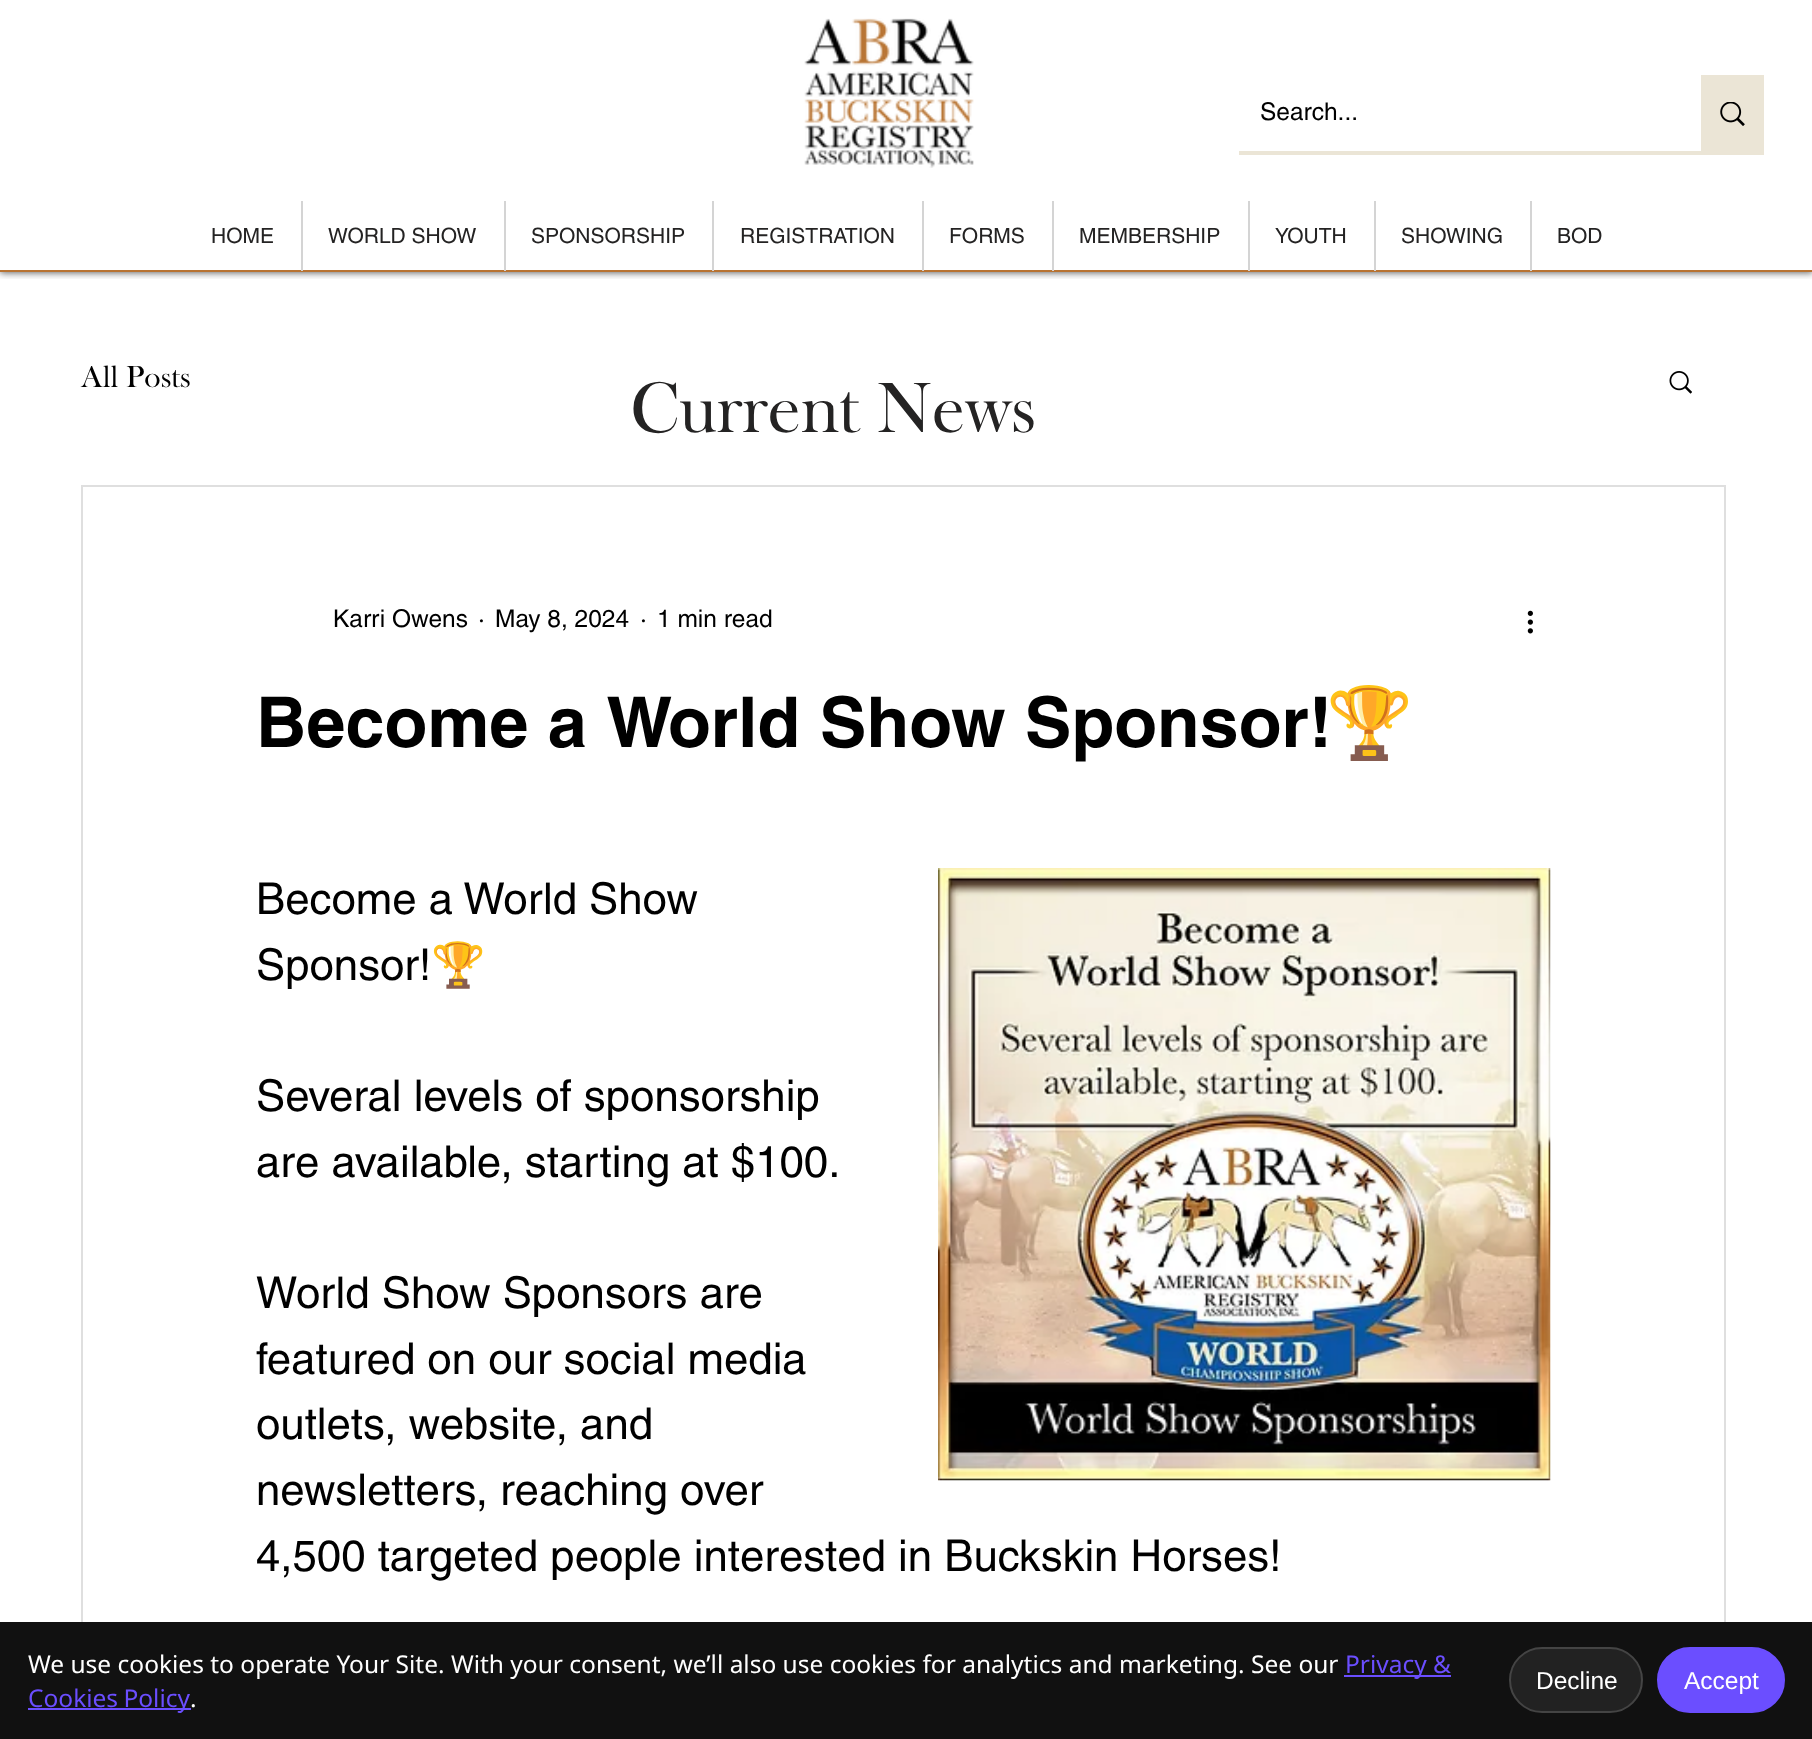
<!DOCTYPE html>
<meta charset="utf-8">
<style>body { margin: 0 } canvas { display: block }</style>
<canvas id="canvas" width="1812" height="1739"></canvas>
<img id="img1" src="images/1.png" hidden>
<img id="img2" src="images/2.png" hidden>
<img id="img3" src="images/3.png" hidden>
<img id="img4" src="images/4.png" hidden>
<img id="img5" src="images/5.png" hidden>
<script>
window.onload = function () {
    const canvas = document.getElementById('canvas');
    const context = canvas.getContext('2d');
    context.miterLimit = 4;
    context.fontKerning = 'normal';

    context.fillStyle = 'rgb(255, 255, 255)';
    context.fillRect(0, 0, 1812, 1739);
    context.save();
    context.beginPath();
    context.rect(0, 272, 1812, 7);
    context.clip();
    context.fillStyle = 'rgba(0, 0, 0, 0.6)';
    context.filter = 'blur(3.5px)';
    context.beginPath();
    context.rect(0, 2, 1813, 271);
    context.fill();
    context.filter = 'none';
    context.restore();
    context.fillStyle = 'rgb(184, 115, 50)';
    context.fillRect(0, 270, 1812, 2);
    context.drawImage(document.getElementById('img1'), 804, 18, 170, 150);
    context.fillStyle = 'rgb(235, 229, 214)';
    context.fillRect(1239, 151, 525, 4);
    context.fillRect(1701, 75, 63, 76);
    context.drawImage(document.getElementById('img2'), 1720, 102, 25, 24);
    context.fillStyle = 'rgb(212, 212, 212)';
    context.fillRect(301, 201, 2, 70);
    context.fillRect(504, 201, 2, 70);
    context.fillRect(712, 201, 2, 70);
    context.fillRect(922, 201, 2, 70);
    context.fillRect(1052, 201, 2, 70);
    context.fillRect(1248, 201, 2, 70);
    context.fillRect(1374, 201, 2, 70);
    context.fillRect(1530, 201, 2, 70);
    context.drawImage(document.getElementById('img3'), 1669, 371, 23, 23);
    context.strokeStyle = 'rgb(223, 223, 223)';
    context.lineWidth = 2;
    context.strokeRect(82, 486, 1643, 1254);
    context.drawImage(document.getElementById('img4'), 1527, 610, 6, 24);
    context.drawImage(document.getElementById('img5'), 938, 868, 613, 613);
    context.fillStyle = 'rgb(17, 17, 17)';
    context.fillRect(0, 1622, 1812, 117);
    context.fillStyle = 'rgb(107, 78, 255)';
    context.fillRect(1344, 1675, 107, 2);
    context.fillRect(28, 1708, 163, 2);
    context.fillStyle = 'rgb(34, 34, 34)';
    context.beginPath();
    context.roundRect(1510, 1648, 132, 64, 32);
    context.fill();
    context.strokeStyle = 'rgb(68, 68, 68)';
    context.stroke();
    context.fillStyle = 'rgb(107, 78, 255)';
    context.beginPath();
    context.roundRect(1658, 1648, 126, 64, 32);
    context.fill();
    context.strokeStyle = 'rgb(107, 78, 255)';
    context.stroke();
    context.font = '24.5px helvetica';
    context.fillStyle = 'rgb(0, 0, 0)';
    context.fillText('Search...', 1260, 120);
    context.font = '21px helvetica';
    context.fillStyle = 'rgb(36, 35, 35)';
    context.fillText('HOME', 211, 243);
    context.fillText('WORLD SHOW', 328, 243);
    context.fillText('SPONSORSHIP', 531, 243);
    context.fillText('REGISTRATION', 740, 243);
    context.fillText('FORMS', 949, 243);
    context.fillText('MEMBERSHIP', 1079, 243);
    context.fillText('YOUTH', 1275, 243);
    context.fillText('SHOWING', 1401, 243);
    context.fillText('BOD', 1557, 243);
    context.font = '31.5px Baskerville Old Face';
    context.fillStyle = 'rgb(0, 0, 0)';
    context.fillText('All Posts', 81, 387);
    context.font = '24.5px helvetica';
    context.fillText('Karri Owens', 333, 627);
    context.fillText('·', 478, 627);
    context.fillText('May 8, 2024', 495, 627);
    context.fillText('·', 640, 627);
    context.fillText('1 min read', 657, 627);
    context.font = 'bold 70px helvetica';
    context.fillText('Become a World Show Sponsor!', 256, 747);
    context.font = '70px Noto Color Emoji';
    context.fillText('🏆', 1326, 747);
    context.font = '43.75px helvetica';
    context.fillText('Become a World Show', 256, 914);
    context.fillText('Sponsor!', 256, 980);
    context.font = '43.75px Noto Color Emoji';
    context.fillText('🏆', 431, 980);
    context.font = '43.75px helvetica';
    context.fillText('Several levels of sponsorship', 256, 1111);
    context.fillText('are available, starting at $100.', 256, 1177);
    context.fillText('World Show Sponsors are', 256, 1308);
    context.fillText('featured on our social media', 256, 1374);
    context.fillText('outlets, website, and', 256, 1439);
    context.fillText('newsletters, reaching over', 256, 1505);
    context.fillText('4,500 targeted people interested in Buckskin Horses!', 256, 1571);
    context.font = '73.5px Baskerville Old Face';
    context.fillStyle = 'rgb(36, 35, 35)';
    context.fillText('Current News', 630, 432);
    context.font = '24.5px Noto Sans';
    context.fillStyle = 'rgb(255, 255, 255)';
    context.fillText('We use cookies to operate Your Site. With your consent, we’ll also use cookies for analytics and marketing. See our', 28, 1673);
    context.fillStyle = 'rgb(107, 78, 255)';
    context.fillText('Privacy &', 1345, 1673);
    context.wordSpacing = '-1px';
    context.fillText('Cookies Policy', 28, 1707);
    context.wordSpacing = '0px';
    context.fillStyle = 'rgb(255, 255, 255)';
    context.fillText('.', 190, 1707);
    context.font = '24.5px Liberation Sans';
    context.fillText('Decline', 1536, 1689);
    context.fillText('Accept', 1684, 1689);
};
</script>
